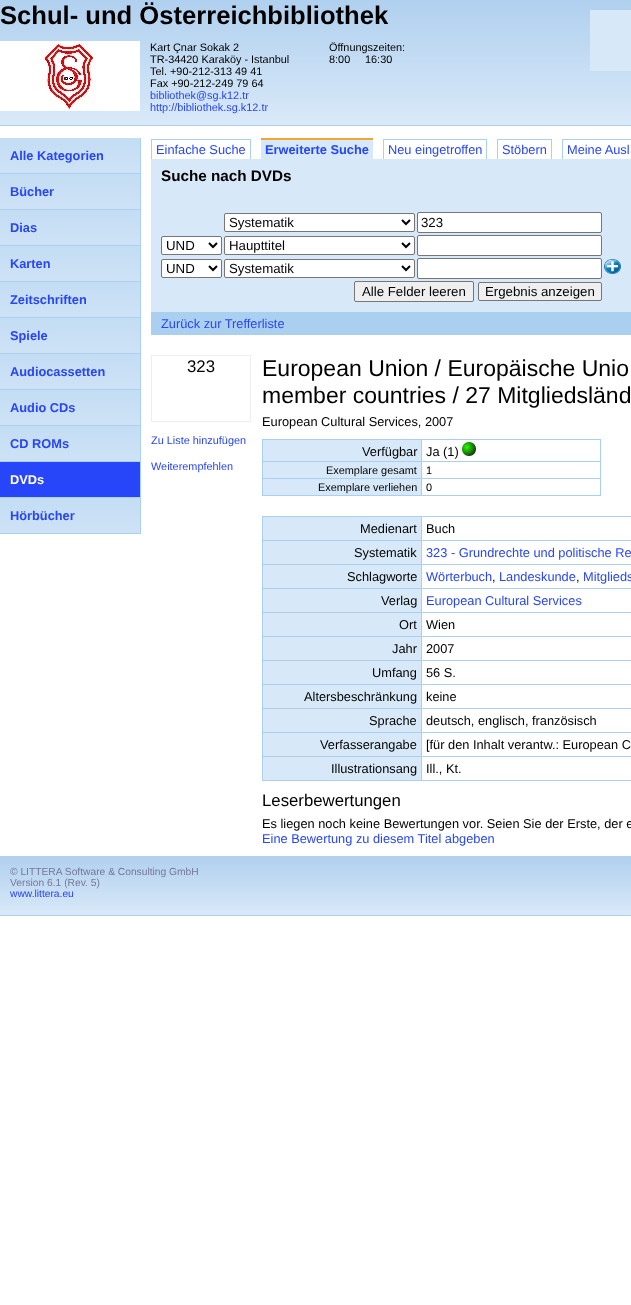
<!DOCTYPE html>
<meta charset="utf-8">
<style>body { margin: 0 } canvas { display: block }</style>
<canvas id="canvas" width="631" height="1305"></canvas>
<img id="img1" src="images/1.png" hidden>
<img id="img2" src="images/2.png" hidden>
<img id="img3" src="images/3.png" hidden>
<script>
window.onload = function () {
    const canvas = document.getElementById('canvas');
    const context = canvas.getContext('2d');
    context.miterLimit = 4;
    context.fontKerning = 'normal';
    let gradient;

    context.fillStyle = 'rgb(255, 255, 255)';
    context.fillRect(0, 0, 631, 1305);
    gradient = context.createLinearGradient(316, 0, 316, 125);
    gradient.addColorStop(0, 'rgb(176, 208, 239)');
    gradient.addColorStop(1, 'rgb(217, 233, 248)');
    context.fillStyle = gradient;
    context.fillRect(0, 0, 631, 125);
    context.fillStyle = 'rgb(172, 208, 239)';
    context.fillRect(0, 125, 631, 1);
    context.drawImage(document.getElementById('img1'), 0, 41, 140, 70);
    context.fillStyle = 'rgb(215, 233, 248)';
    context.fillRect(590, 10, 41, 61);
    gradient = context.createLinearGradient(70, 138, 70, 173);
    gradient.addColorStop(0, 'rgb(195, 221, 244)');
    gradient.addColorStop(1, 'rgb(206, 226, 246)');
    context.fillStyle = gradient;
    context.fillRect(0, 138, 140, 35);
    context.fillStyle = 'rgb(172, 208, 239)';
    context.fillRect(140, 138, 1, 396);
    context.fillRect(0, 173, 141, 1);
    gradient = context.createLinearGradient(70, 174, 70, 209);
    gradient.addColorStop(0, 'rgb(195, 221, 244)');
    gradient.addColorStop(1, 'rgb(206, 226, 246)');
    context.fillStyle = gradient;
    context.fillRect(0, 174, 140, 35);
    context.fillStyle = 'rgb(172, 208, 239)';
    context.fillRect(0, 209, 141, 1);
    gradient = context.createLinearGradient(70, 210, 70, 245);
    gradient.addColorStop(0, 'rgb(195, 221, 244)');
    gradient.addColorStop(1, 'rgb(206, 226, 246)');
    context.fillStyle = gradient;
    context.fillRect(0, 210, 140, 35);
    context.fillStyle = 'rgb(172, 208, 239)';
    context.fillRect(0, 245, 141, 1);
    gradient = context.createLinearGradient(70, 246, 70, 281);
    gradient.addColorStop(0, 'rgb(195, 221, 244)');
    gradient.addColorStop(1, 'rgb(206, 226, 246)');
    context.fillStyle = gradient;
    context.fillRect(0, 246, 140, 35);
    context.fillStyle = 'rgb(172, 208, 239)';
    context.fillRect(0, 281, 141, 1);
    gradient = context.createLinearGradient(70, 282, 70, 317);
    gradient.addColorStop(0, 'rgb(195, 221, 244)');
    gradient.addColorStop(1, 'rgb(206, 226, 246)');
    context.fillStyle = gradient;
    context.fillRect(0, 282, 140, 35);
    context.fillStyle = 'rgb(172, 208, 239)';
    context.fillRect(0, 317, 141, 1);
    gradient = context.createLinearGradient(70, 318, 70, 353);
    gradient.addColorStop(0, 'rgb(195, 221, 244)');
    gradient.addColorStop(1, 'rgb(206, 226, 246)');
    context.fillStyle = gradient;
    context.fillRect(0, 318, 140, 35);
    context.fillStyle = 'rgb(172, 208, 239)';
    context.fillRect(0, 353, 141, 1);
    gradient = context.createLinearGradient(70, 354, 70, 389);
    gradient.addColorStop(0, 'rgb(195, 221, 244)');
    gradient.addColorStop(1, 'rgb(206, 226, 246)');
    context.fillStyle = gradient;
    context.fillRect(0, 354, 140, 35);
    context.fillStyle = 'rgb(172, 208, 239)';
    context.fillRect(0, 389, 141, 1);
    gradient = context.createLinearGradient(70, 390, 70, 425);
    gradient.addColorStop(0, 'rgb(195, 221, 244)');
    gradient.addColorStop(1, 'rgb(206, 226, 246)');
    context.fillStyle = gradient;
    context.fillRect(0, 390, 140, 35);
    context.fillStyle = 'rgb(172, 208, 239)';
    context.fillRect(0, 425, 141, 1);
    gradient = context.createLinearGradient(70, 426, 70, 461);
    gradient.addColorStop(0, 'rgb(195, 221, 244)');
    gradient.addColorStop(1, 'rgb(206, 226, 246)');
    context.fillStyle = gradient;
    context.fillRect(0, 426, 140, 35);
    context.fillStyle = 'rgb(172, 208, 239)';
    context.fillRect(0, 461, 141, 1);
    context.fillStyle = 'rgb(39, 69, 249)';
    context.fillRect(0, 462, 140, 35);
    context.fillStyle = 'rgb(172, 208, 239)';
    context.fillRect(0, 497, 141, 1);
    gradient = context.createLinearGradient(70, 498, 70, 533);
    gradient.addColorStop(0, 'rgb(195, 221, 244)');
    gradient.addColorStop(1, 'rgb(206, 226, 246)');
    context.fillStyle = gradient;
    context.fillRect(0, 498, 140, 35);
    context.fillStyle = 'rgb(172, 208, 239)';
    context.fillRect(0, 533, 141, 1);
    context.fillRect(151, 139, 100, 1);
    context.fillRect(250, 139, 1, 20);
    context.fillRect(151, 139, 1, 20);
    context.fillStyle = 'rgb(215, 233, 248)';
    context.fillRect(261, 140, 112, 19);
    context.fillStyle = 'rgb(241, 166, 48)';
    context.fillRect(261, 138, 112, 2);
    context.fillStyle = 'rgb(172, 208, 239)';
    context.fillRect(383, 139, 104, 1);
    context.fillRect(486, 139, 1, 20);
    context.fillRect(383, 139, 1, 20);
    context.fillRect(497, 139, 55, 1);
    context.fillRect(551, 139, 1, 20);
    context.fillRect(497, 139, 1, 20);
    context.fillRect(562, 139, 69, 1);
    context.fillRect(562, 139, 1, 20);
    context.fillStyle = 'rgb(215, 233, 248)';
    context.fillRect(151, 159, 480, 153);
    context.fillStyle = 'rgb(255, 255, 255)';
    context.beginPath();
    context.roundRect(224.5, 213.5, 190, 18, 1.5);
    context.fill();
    context.strokeStyle = 'rgb(118, 118, 118)';
    context.stroke();
    context.beginPath();
    context.moveTo(402, 220);
    context.lineTo(406, 224);
    context.lineTo(410, 220);
    context.strokeStyle = 'rgb(0, 0, 0)';
    context.lineWidth = 2;
    context.stroke();
    context.beginPath();
    context.roundRect(417.5, 212.5, 184, 20, 1.5);
    context.fill();
    context.strokeStyle = 'rgb(118, 118, 118)';
    context.lineWidth = 1;
    context.stroke();
    context.beginPath();
    context.roundRect(161.5, 236.5, 60, 18, 1.5);
    context.fill();
    context.stroke();
    context.beginPath();
    context.moveTo(209, 243);
    context.lineTo(213, 247);
    context.lineTo(217, 243);
    context.strokeStyle = 'rgb(0, 0, 0)';
    context.lineWidth = 2;
    context.stroke();
    context.beginPath();
    context.roundRect(224.5, 236.5, 190, 18, 1.5);
    context.fill();
    context.strokeStyle = 'rgb(118, 118, 118)';
    context.lineWidth = 1;
    context.stroke();
    context.beginPath();
    context.moveTo(402, 243);
    context.lineTo(406, 247);
    context.lineTo(410, 243);
    context.strokeStyle = 'rgb(0, 0, 0)';
    context.lineWidth = 2;
    context.stroke();
    context.beginPath();
    context.roundRect(417.5, 235.5, 184, 20, 1.5);
    context.fill();
    context.strokeStyle = 'rgb(118, 118, 118)';
    context.lineWidth = 1;
    context.stroke();
    context.beginPath();
    context.roundRect(161.5, 259.5, 60, 18, 1.5);
    context.fill();
    context.stroke();
    context.beginPath();
    context.moveTo(209, 266);
    context.lineTo(213, 270);
    context.lineTo(217, 266);
    context.strokeStyle = 'rgb(0, 0, 0)';
    context.lineWidth = 2;
    context.stroke();
    context.beginPath();
    context.roundRect(224.5, 259.5, 190, 18, 1.5);
    context.fill();
    context.strokeStyle = 'rgb(118, 118, 118)';
    context.lineWidth = 1;
    context.stroke();
    context.beginPath();
    context.moveTo(402, 266);
    context.lineTo(406, 270);
    context.lineTo(410, 266);
    context.strokeStyle = 'rgb(0, 0, 0)';
    context.lineWidth = 2;
    context.stroke();
    context.beginPath();
    context.roundRect(417.5, 258.5, 184, 20, 1.5);
    context.fill();
    context.strokeStyle = 'rgb(118, 118, 118)';
    context.lineWidth = 1;
    context.stroke();
    context.drawImage(document.getElementById('img2'), 604, 259, 17, 15);
    context.fillStyle = 'rgb(239, 239, 239)';
    context.beginPath();
    context.roundRect(354.5, 281.5, 119, 20, 1.5);
    context.fill();
    context.stroke();
    context.beginPath();
    context.roundRect(478.5, 282.5, 123, 18, 1.5);
    context.fill();
    context.stroke();
    context.fillStyle = 'rgb(171, 208, 239)';
    context.fillRect(151, 312, 480, 23);
    context.strokeStyle = 'rgb(238, 238, 238)';
    context.strokeRect(151.5, 355.5, 99, 66);
    context.fillStyle = 'rgb(215, 233, 248)';
    context.fillRect(263, 440, 158, 21);
    context.fillStyle = 'rgb(171, 208, 239)';
    context.fillRect(421, 439, 180, 1);
    context.fillRect(421, 461, 180, 1);
    context.fillRect(421, 478, 180, 1);
    context.fillRect(600, 478, 1, 18);
    context.fillRect(421, 495, 180, 1);
    context.fillRect(421, 478, 1, 18);
    context.fillRect(262, 478, 160, 1);
    context.fillRect(421, 461, 1, 18);
    context.fillRect(262, 461, 160, 1);
    context.fillRect(421, 439, 1, 23);
    context.fillRect(262, 439, 160, 1);
    context.fillRect(262, 495, 160, 1);
    context.fillRect(262, 478, 1, 18);
    context.fillRect(262, 461, 1, 18);
    context.fillRect(262, 439, 1, 23);
    context.fillRect(600, 461, 1, 18);
    context.fillRect(600, 439, 1, 23);
    context.drawImage(document.getElementById('img3'), 462, 442, 14, 14);
    context.fillStyle = 'rgb(215, 233, 248)';
    context.fillRect(263, 462, 158, 16);
    context.fillRect(263, 479, 158, 16);
    context.fillRect(263, 517, 158, 23);
    context.fillStyle = 'rgb(171, 208, 239)';
    context.fillRect(421, 516, 210, 1);
    context.fillRect(421, 540, 210, 1);
    context.fillRect(421, 564, 210, 1);
    context.fillRect(421, 588, 210, 1);
    context.fillRect(421, 612, 210, 1);
    context.fillRect(421, 636, 210, 1);
    context.fillRect(421, 660, 210, 1);
    context.fillRect(421, 684, 210, 1);
    context.fillRect(421, 708, 210, 1);
    context.fillRect(421, 732, 210, 1);
    context.fillRect(421, 756, 210, 1);
    context.fillRect(421, 780, 210, 1);
    context.fillRect(421, 756, 1, 25);
    context.fillRect(262, 756, 160, 1);
    context.fillRect(421, 732, 1, 25);
    context.fillRect(262, 732, 160, 1);
    context.fillRect(421, 708, 1, 25);
    context.fillRect(262, 708, 160, 1);
    context.fillRect(421, 684, 1, 25);
    context.fillRect(262, 684, 160, 1);
    context.fillRect(421, 660, 1, 25);
    context.fillRect(262, 660, 160, 1);
    context.fillRect(421, 636, 1, 25);
    context.fillRect(262, 636, 160, 1);
    context.fillRect(421, 612, 1, 25);
    context.fillRect(262, 612, 160, 1);
    context.fillRect(421, 588, 1, 25);
    context.fillRect(262, 588, 160, 1);
    context.fillRect(421, 564, 1, 25);
    context.fillRect(262, 564, 160, 1);
    context.fillRect(421, 540, 1, 25);
    context.fillRect(262, 540, 160, 1);
    context.fillRect(421, 516, 1, 25);
    context.fillRect(262, 516, 160, 1);
    context.fillRect(262, 780, 160, 1);
    context.fillRect(262, 756, 1, 25);
    context.fillRect(262, 732, 1, 25);
    context.fillRect(262, 708, 1, 25);
    context.fillRect(262, 684, 1, 25);
    context.fillRect(262, 660, 1, 25);
    context.fillRect(262, 636, 1, 25);
    context.fillRect(262, 612, 1, 25);
    context.fillRect(262, 588, 1, 25);
    context.fillRect(262, 564, 1, 25);
    context.fillRect(262, 540, 1, 25);
    context.fillRect(262, 516, 1, 25);
    context.fillStyle = 'rgb(215, 233, 248)';
    context.fillRect(263, 541, 158, 23);
    context.fillRect(263, 565, 158, 23);
    context.fillRect(263, 589, 158, 23);
    context.fillRect(263, 613, 158, 23);
    context.fillRect(263, 637, 158, 23);
    context.fillRect(263, 661, 158, 23);
    context.fillRect(263, 685, 158, 23);
    context.fillRect(263, 709, 158, 23);
    context.fillRect(263, 733, 158, 23);
    context.fillRect(263, 757, 158, 23);
    gradient = context.createLinearGradient(480, 856, 480, 915);
    gradient.addColorStop(0, 'rgb(176, 208, 239)');
    gradient.addColorStop(1, 'rgb(217, 233, 248)');
    context.fillStyle = gradient;
    context.fillRect(0, 856, 631, 59);
    context.fillStyle = 'rgb(172, 208, 239)';
    context.fillRect(0, 915, 631, 1);
    context.font = 'bold 25.6px Liberation Sans';
    context.fillStyle = 'rgb(0, 0, 0)';
    context.fillText('Schul- und Österreichbibliothek', 0, 24);
    context.font = '10.9px Liberation Sans';
    context.fillText('Kart Çnar Sokak 2', 150, 51);
    context.fillText('TR-34420 Karaköy - Istanbul', 150, 63);
    context.fillText('Tel. +90-212-313 49 41', 150, 75);
    context.fillText('Fax +90-212-249 79 64', 150, 87);
    context.fillStyle = 'rgb(39, 69, 249)';
    context.fillText('bibliothek@sg.k12.tr', 150, 99);
    context.fillText('http://bibliothek.sg.k12.tr', 150, 111);
    context.fillStyle = 'rgb(0, 0, 0)';
    context.fillText('Öffnungszeiten:', 329, 51);
    context.fillText('8:00', 329, 63);
    context.fillText('16:30', 365, 63);
    context.font = 'bold 12.8px Liberation Sans';
    context.fillStyle = 'rgb(39, 69, 249)';
    context.fillText('Alle Kategorien', 10, 160);
    context.fillText('Bücher', 10, 196);
    context.fillText('Dias', 10, 232);
    context.fillText('Karten', 10, 268);
    context.fillText('Zeitschriften', 10, 304);
    context.fillText('Spiele', 10, 340);
    context.fillText('Audiocassetten', 10, 376);
    context.fillText('Audio CDs', 10, 412);
    context.fillText('CD ROMs', 10, 448);
    context.fillStyle = 'rgb(255, 255, 255)';
    context.fillText('DVDs', 10, 484);
    context.fillStyle = 'rgb(39, 69, 249)';
    context.fillText('Hörbücher', 10, 520);
    context.font = '12.8px Liberation Sans';
    context.fillText('Einfache Suche', 156, 154);
    context.font = 'bold 12.8px Liberation Sans';
    context.fillText('Erweiterte Suche', 265, 154);
    context.font = '12.8px Liberation Sans';
    context.fillText('Neu eingetroffen', 388, 154);
    context.fillText('Stöbern', 502, 154);
    context.fillText('Meine Ausl', 567, 154);
    context.font = 'bold 15.25px Liberation Sans';
    context.fillStyle = 'rgb(0, 0, 0)';
    context.fillText('Suche nach DVDs', 161, 181);
    context.font = '13.25px Liberation Sans';
    context.fillText('Systematik', 229, 227);
    context.fillText('323', 421, 227);
    context.fillText('UND', 166, 250);
    context.fillText('Haupttitel', 229, 250);
    context.fillText('UND', 166, 273);
    context.fillText('Systematik', 229, 273);
    context.fillText('Alle Felder leeren', 362, 296);
    context.fillText('Ergebnis anzeigen', 485, 296);
    context.font = '12.8px Liberation Sans';
    context.fillStyle = 'rgb(39, 69, 249)';
    context.fillText('Zurück zur Trefferliste', 161, 328);
    context.font = '16.75px Liberation Sans';
    context.fillStyle = 'rgb(0, 0, 0)';
    context.fillText('323', 187, 372);
    context.font = '10.9px Liberation Sans';
    context.fillStyle = 'rgb(39, 69, 249)';
    context.fillText('Zu Liste hinzufügen', 151, 444);
    context.fillText('Weiterempfehlen', 151, 470);
    context.font = '23px Liberation Sans';
    context.fillStyle = 'rgb(0, 0, 0)';
    context.fillText('European Union / Europäische Unio', 262, 376);
    context.fillText('member countries / 27 Mitgliedsländ', 262, 403);
    context.font = '12.8px Liberation Sans';
    context.fillText('European Cultural Services, 2007', 262, 426);
    context.fillText('Verfügbar', 362, 456);
    context.fillText('Ja (1)', 426, 456);
    context.font = '10.9px Liberation Sans';
    context.fillText('Exemplare gesamt', 326, 474);
    context.fillText('1', 426, 474);
    context.fillText('Exemplare verliehen', 318, 491);
    context.fillText('0', 426, 491);
    context.font = '12.8px Liberation Sans';
    context.fillText('Medienart', 360, 533);
    context.fillText('Buch', 426, 533);
    context.fillText('Systematik', 354, 557);
    context.fillStyle = 'rgb(39, 69, 249)';
    context.fillText('323 - Grundrechte und politische Re', 426, 557);
    context.fillStyle = 'rgb(0, 0, 0)';
    context.fillText('Schlagworte', 347, 581);
    context.fillStyle = 'rgb(39, 69, 249)';
    context.fillText('Wörterbuch', 426, 581);
    context.fillStyle = 'rgb(0, 0, 0)';
    context.fillText(',', 492, 581);
    context.fillStyle = 'rgb(39, 69, 249)';
    context.fillText('Landeskunde', 499, 581);
    context.fillStyle = 'rgb(0, 0, 0)';
    context.fillText(',', 576, 581);
    context.fillStyle = 'rgb(39, 69, 249)';
    context.fillText('Mitglieds', 583, 581);
    context.fillStyle = 'rgb(0, 0, 0)';
    context.fillText('Verlag', 381, 605);
    context.fillStyle = 'rgb(39, 69, 249)';
    context.fillText('European Cultural Services', 426, 605);
    context.fillStyle = 'rgb(0, 0, 0)';
    context.fillText('Ort', 399, 629);
    context.fillText('Wien', 426, 629);
    context.fillText('Jahr', 392, 653);
    context.fillText('2007', 426, 653);
    context.fillText('Umfang', 372, 677);
    context.fillText('56 S.', 426, 677);
    context.fillText('Altersbeschränkung', 304, 701);
    context.fillText('keine', 426, 701);
    context.fillText('Sprache', 369, 725);
    context.fillText('deutsch, englisch, französisch', 426, 725);
    context.fillText('Verfasserangabe', 320, 749);
    context.fillText('[für den Inhalt verantw.: European C', 426, 749);
    context.fillText('Illustrationsang', 331, 773);
    context.fillText('Ill., Kt.', 426, 773);
    context.font = '16.75px Liberation Sans';
    context.fillText('Leserbewertungen', 262, 806);
    context.font = '12.8px Liberation Sans';
    context.fillText('Es liegen noch keine Bewertungen vor. Seien Sie der Erste, der e', 262, 828);
    context.fillStyle = 'rgb(39, 69, 249)';
    context.fillText('Eine Bewertung zu diesem Titel abgeben', 262, 843);
    context.font = '10.25px Liberation Sans';
    context.fillStyle = 'rgb(119, 119, 153)';
    context.fillText('© LITTERA Software & Consulting GmbH', 10, 875);
    context.fillText('Version 6.1 (Rev. 5)', 10, 886);
    context.fillStyle = 'rgb(39, 69, 249)';
    context.fillText('www.littera.eu', 10, 897);
};
</script>
